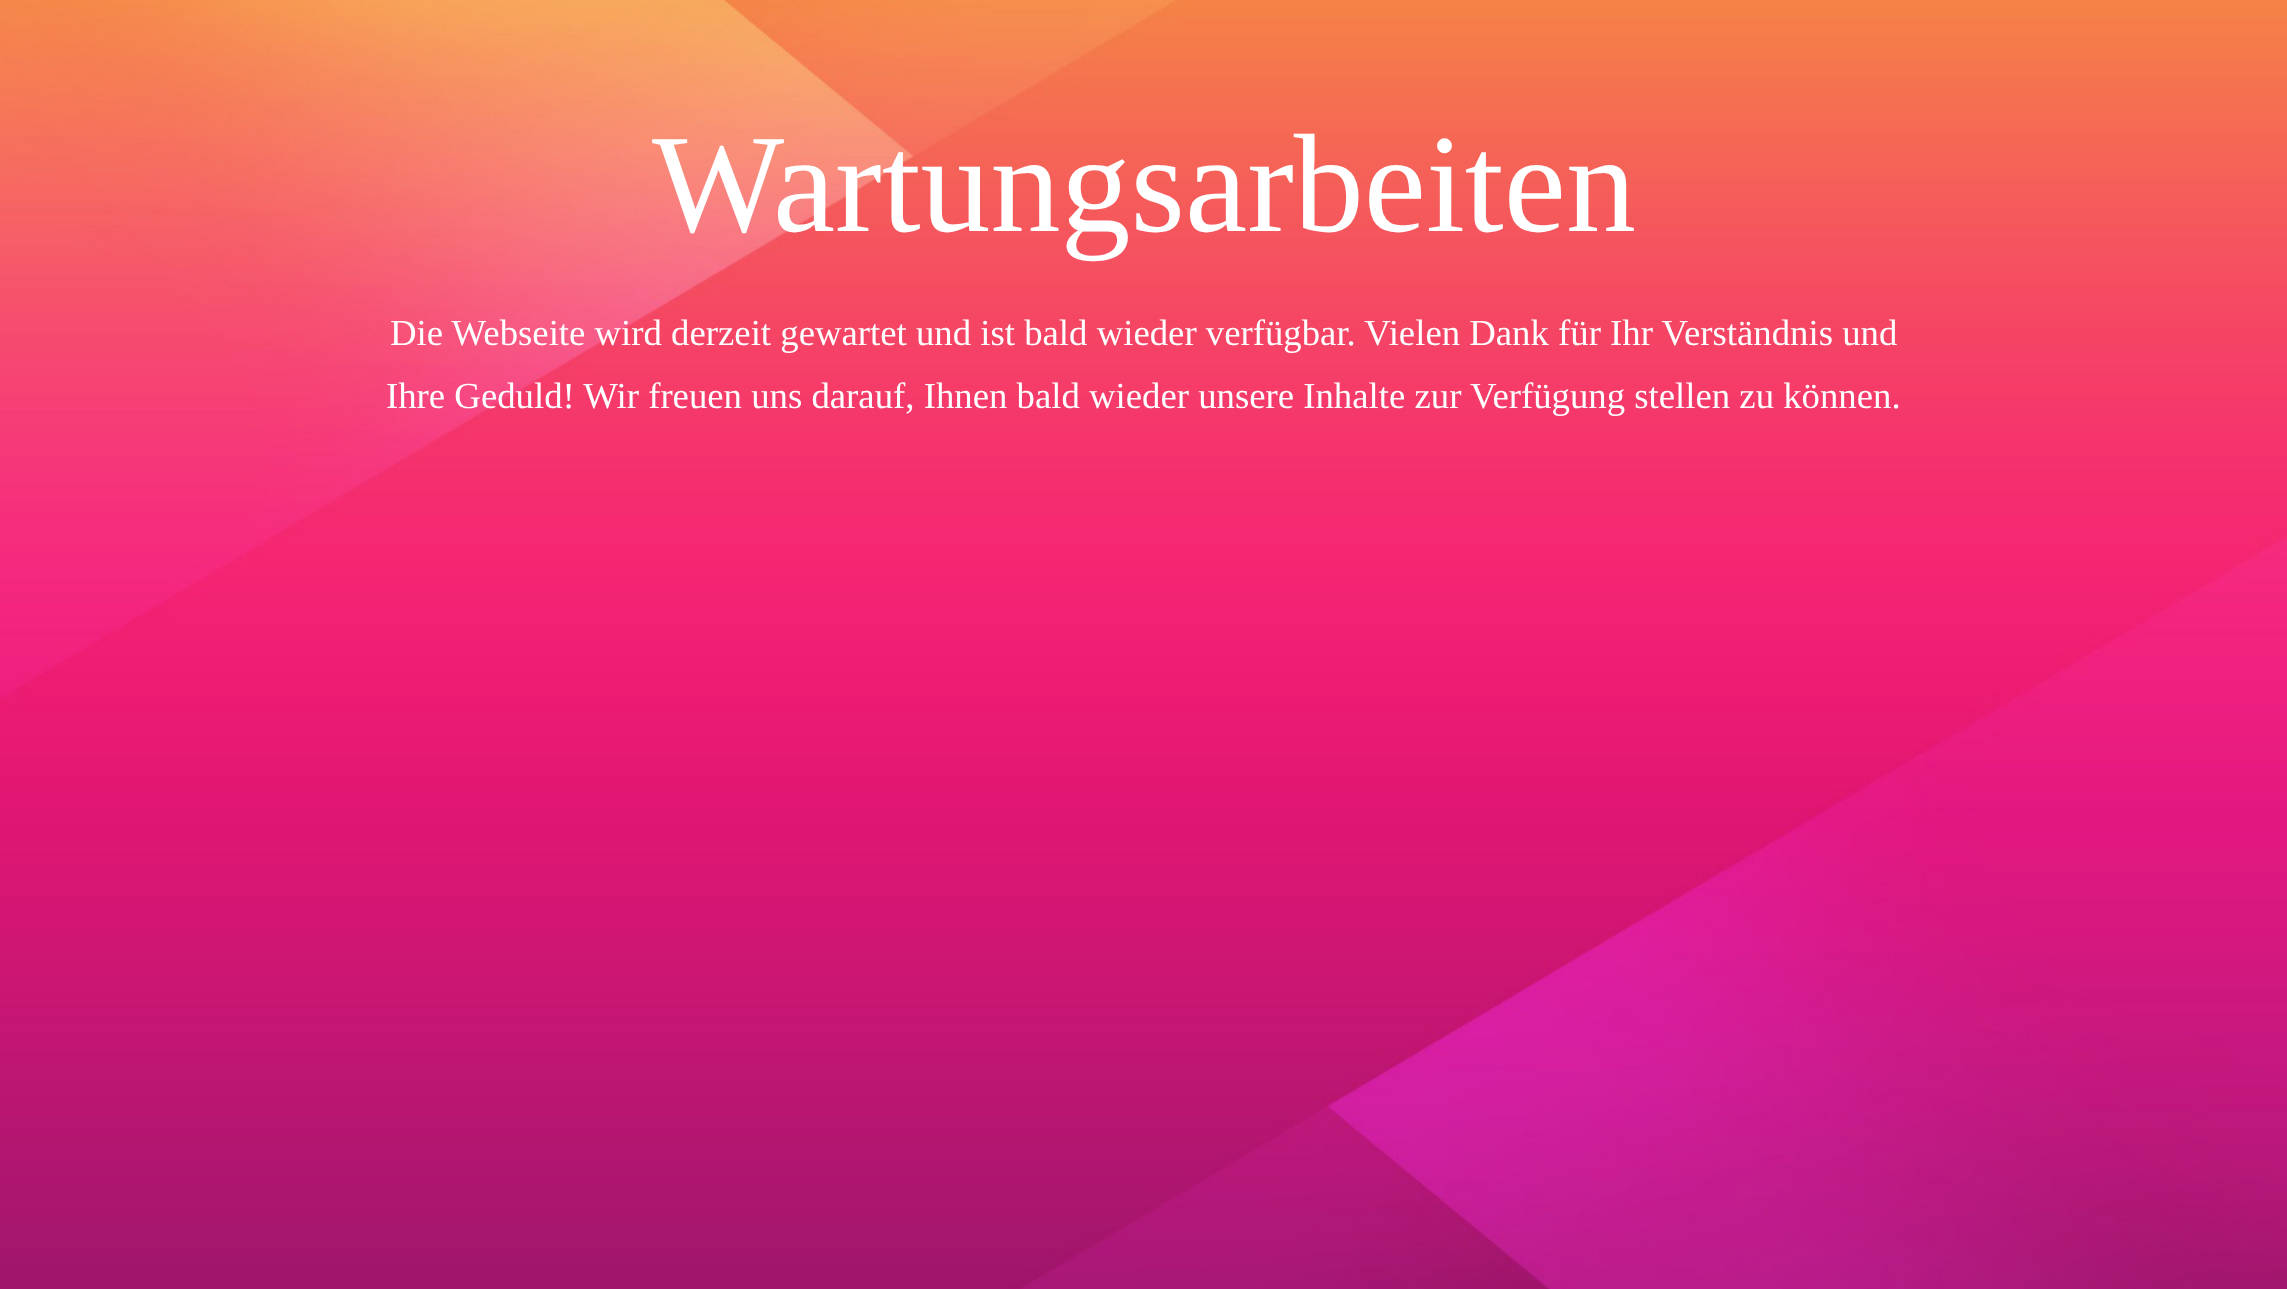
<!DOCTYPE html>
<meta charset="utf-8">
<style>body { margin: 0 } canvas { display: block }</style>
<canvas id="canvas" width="2287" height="1289"></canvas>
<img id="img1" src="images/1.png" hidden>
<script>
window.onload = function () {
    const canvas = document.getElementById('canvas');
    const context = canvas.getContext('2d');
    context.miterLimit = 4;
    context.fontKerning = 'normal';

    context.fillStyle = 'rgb(255, 255, 255)';
    context.fillRect(0, 0, 2287, 1289);
    context.drawImage(document.getElementById('img1'), 0, 0, 2287, 1289);
    context.font = '140px Liberation Serif';
    context.fillText('Wartungsarbeiten', 652, 231);
    context.font = '36.75px Liberation Serif';
    context.fillText('Die Webseite wird derzeit gewartet und ist bald wieder verfügbar. Vielen Dank für Ihr Verständnis und', 390, 345);
    context.fillText('Ihre Geduld! Wir freuen uns darauf, Ihnen bald wieder unsere Inhalte zur Verfügung stellen zu können.', 386, 408);
};
</script>
